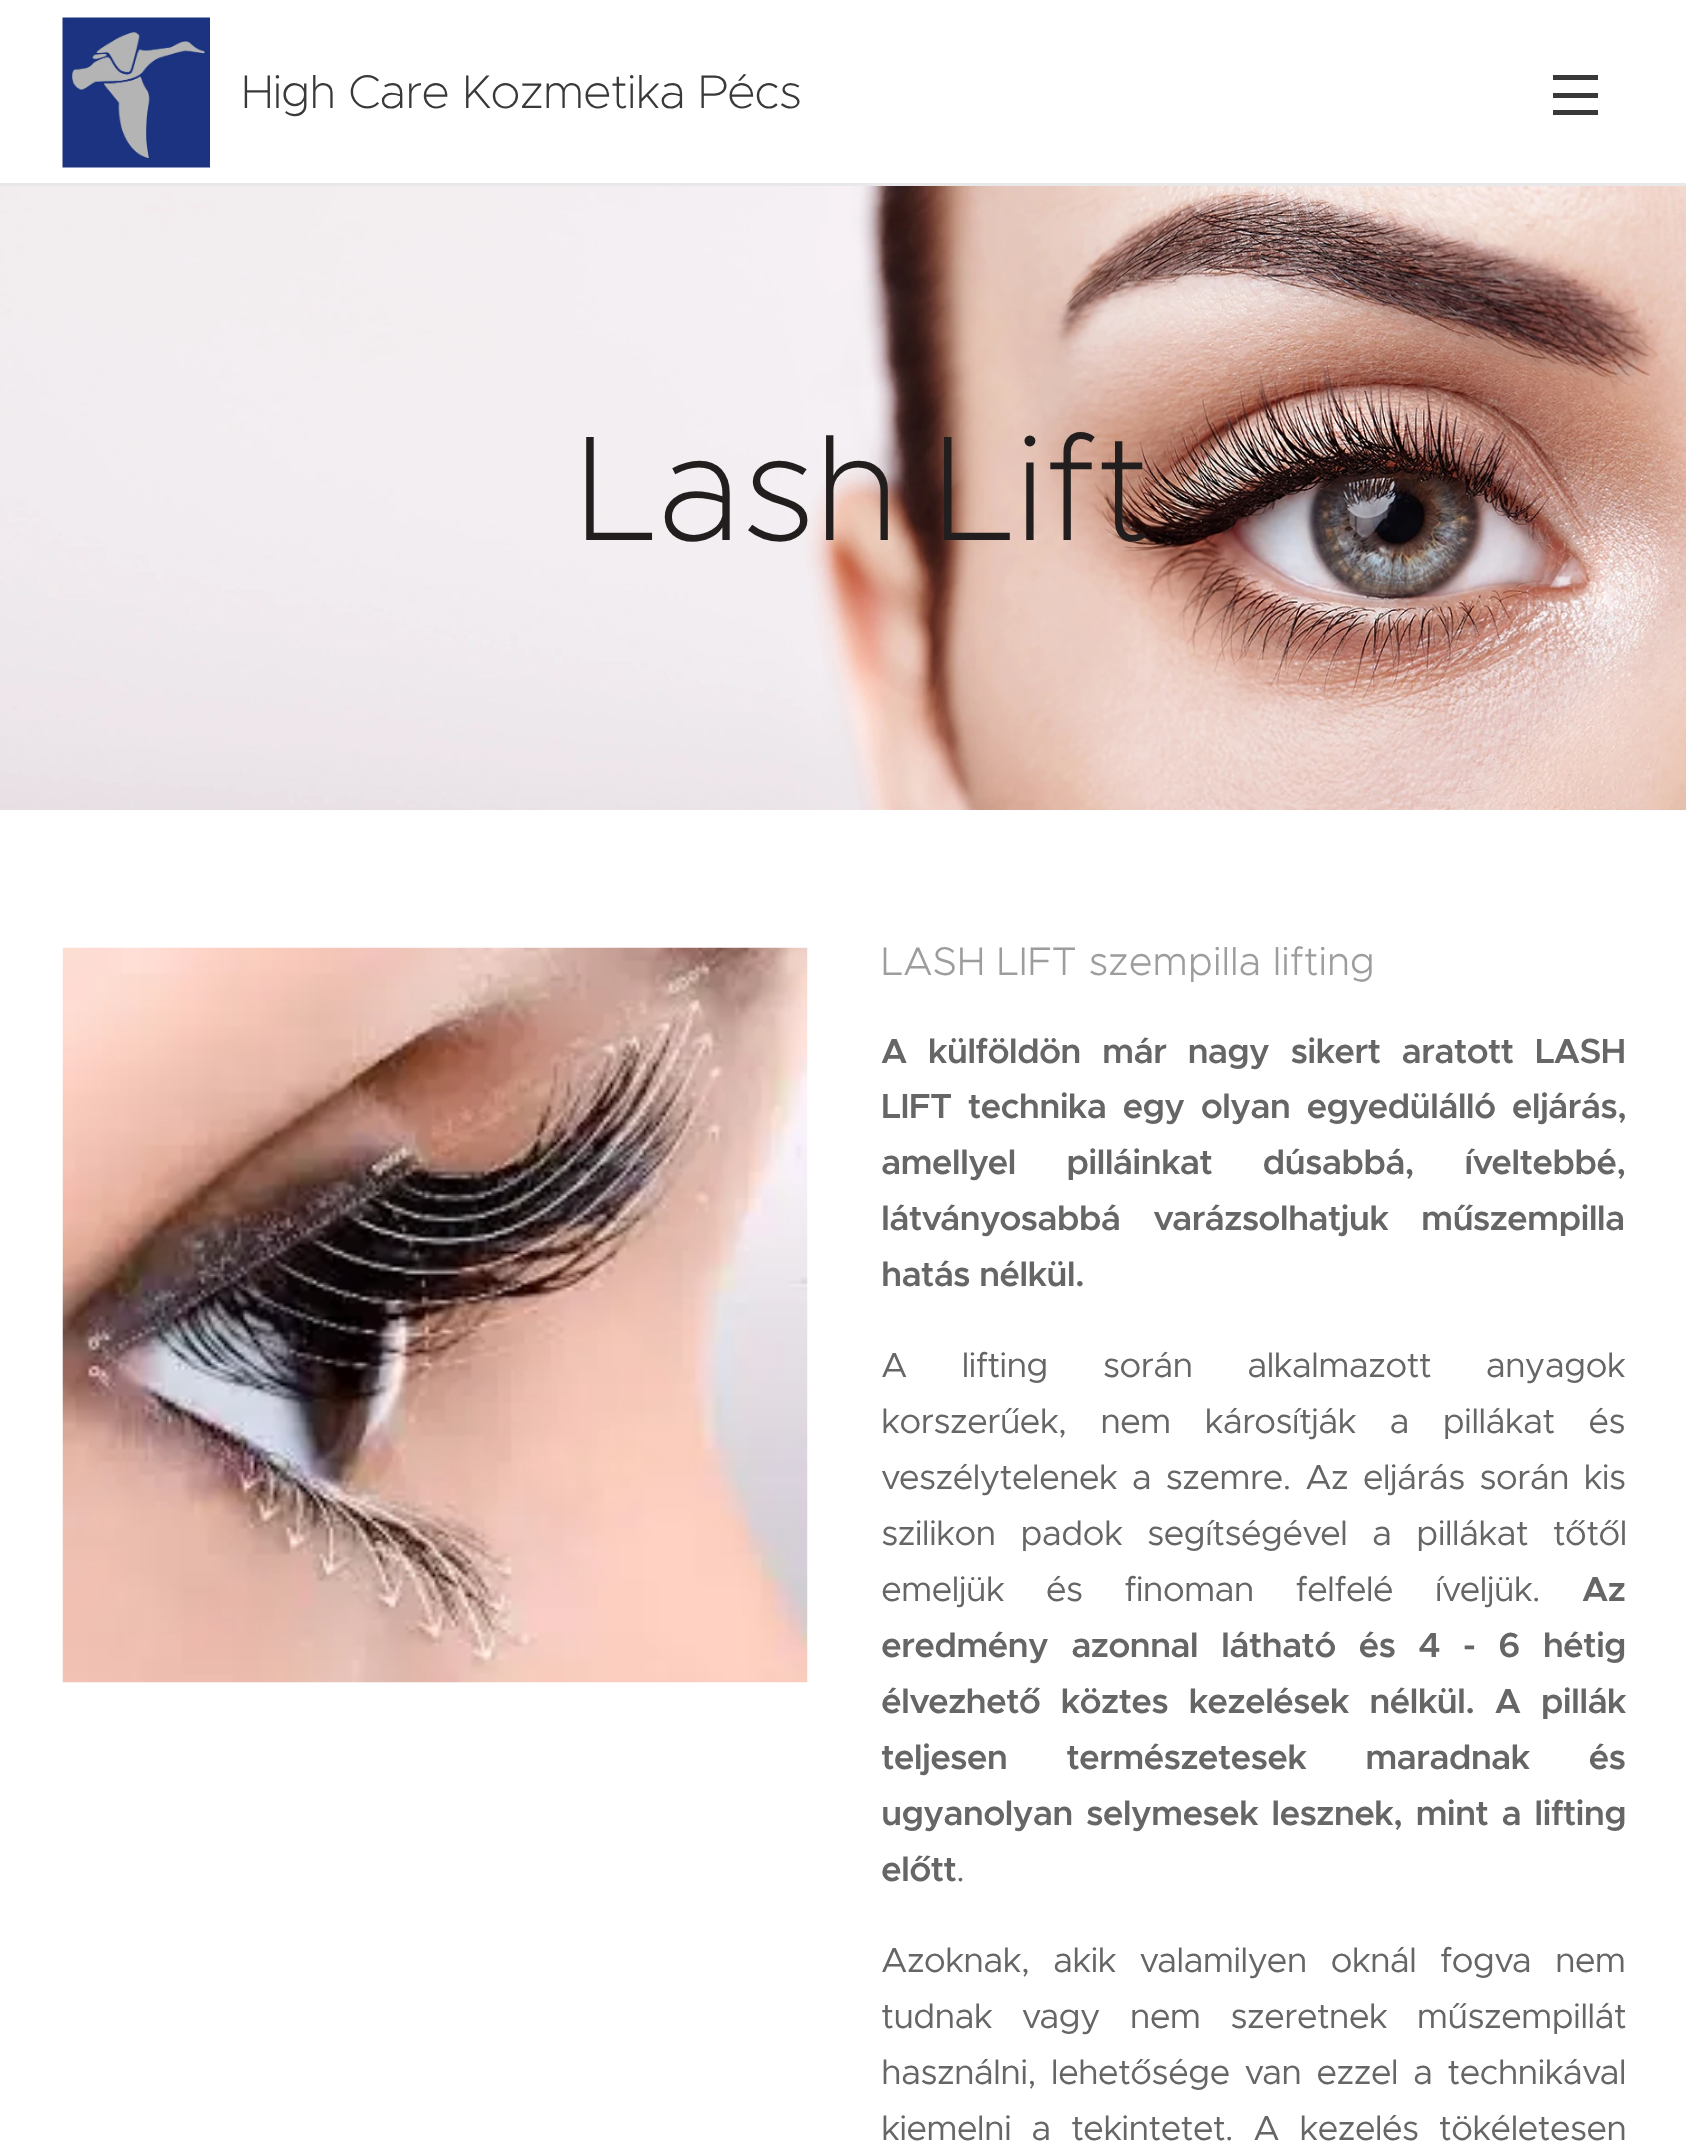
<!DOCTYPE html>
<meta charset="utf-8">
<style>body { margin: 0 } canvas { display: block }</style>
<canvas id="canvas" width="1686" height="2146"></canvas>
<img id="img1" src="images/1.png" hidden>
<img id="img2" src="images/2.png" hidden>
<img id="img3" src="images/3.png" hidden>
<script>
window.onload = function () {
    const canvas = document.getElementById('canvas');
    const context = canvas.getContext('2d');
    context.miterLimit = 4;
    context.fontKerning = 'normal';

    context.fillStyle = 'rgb(255, 255, 255)';
    context.fillRect(0, 0, 1686, 2146);
    context.drawImage(document.getElementById('img1'), 62, 17, 148, 151);
    context.fillStyle = 'rgb(57, 57, 57)';
    context.fillRect(1553, 93, 45, 5);
    context.fillRect(1553, 75, 45, 5);
    context.fillRect(1553, 110, 45, 5);
    context.fillStyle = 'rgb(232, 232, 232)';
    context.fillRect(0, 183, 1686, 3);
    context.drawImage(document.getElementById('img2'), 0, 186, 1686, 624);
    context.drawImage(document.getElementById('img3'), 62, 947, 746, 736);
    context.letterSpacing = '-0.8px';
    context.font = '200 47.25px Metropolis';
    context.fillStyle = 'rgb(57, 57, 57)';
    context.fillText('High Care Kozmetika Pécs', 241, 108);
    context.letterSpacing = '0px';
    context.wordSpacing = '-9px';
    context.font = '200 150px Metropolis';
    context.fillStyle = 'rgb(33, 30, 29)';
    context.fillText('Lash Lift', 576, 540);
    context.wordSpacing = '0px';
    context.font = '300 40px Metropolis';
    context.fillStyle = 'rgb(157, 157, 157)';
    context.fillText('LASH LIFT szempilla lifting', 881, 975);
    context.letterSpacing = '-0.8px';
    context.wordSpacing = '12.25px';
    context.font = '600 35px Metropolis';
    context.fillStyle = 'rgb(102, 102, 102)';
    context.fillText('A külföldön már nagy sikert aratott LASH', 881, 1063);
    context.wordSpacing = '7.25px';
    context.fillText('LIFT technika egy olyan egyedülálló eljárás,', 881, 1118);
    context.wordSpacing = '41.5px';
    context.fillText('amellyel pilláinkat dúsabbá, íveltebbé,', 881, 1174);
    context.wordSpacing = '24px';
    context.fillText('látványosabbá varázsolhatjuk műszempilla', 881, 1230);
    context.wordSpacing = '0px';
    context.fillText('hatás nélkül.', 881, 1286);
    context.wordSpacing = '45.5px';
    context.font = '35px Metropolis';
    context.fillText('A lifting során alkalmazott anyagok', 881, 1377);
    context.wordSpacing = '24.5px';
    context.fillText('korszerűek, nem károsítják a pillákat és', 881, 1433);
    context.wordSpacing = '5.25px';
    context.fillText('veszélytelenek a szemre. Az eljárás során kis', 881, 1489);
    context.wordSpacing = '15.5px';
    context.fillText('szilikon padok segítségével a pillákat tőtől', 881, 1545);
    context.wordSpacing = '32.5px';
    context.fillText('emeljük és finoman felfelé íveljük.', 881, 1601);
    context.wordSpacing = '0px';
    context.font = '600 35px Metropolis';
    context.fillText('Az', 1582, 1601);
    context.wordSpacing = '14px';
    context.fillText('eredmény azonnal látható és 4 - 6 hétig', 881, 1657);
    context.wordSpacing = '11.5px';
    context.fillText('élvezhető köztes kezelések nélkül. A pillák', 881, 1713);
    context.wordSpacing = '50px';
    context.fillText('teljesen természetesek maradnak és', 881, 1769);
    context.wordSpacing = '4.25px';
    context.fillText('ugyanolyan selymesek lesznek, mint a lifting', 881, 1825);
    context.wordSpacing = '0px';
    context.fillText('előtt', 881, 1881);
    context.font = '35px Metropolis';
    context.fillText('.', 956, 1881);
    context.wordSpacing = '14.5px';
    context.fillText('Azoknak, akik valamilyen oknál fogva nem', 881, 1972);
    context.wordSpacing = '20.5px';
    context.fillText('tudnak vagy nem szeretnek műszempillát', 881, 2028);
    context.wordSpacing = '5.75px';
    context.fillText('használni, lehetősége van ezzel a technikával', 881, 2084);
    context.wordSpacing = '11px';
    context.fillText('kiemelni a tekintetet. A kezelés tökéletesen', 881, 2140);
};
</script>
